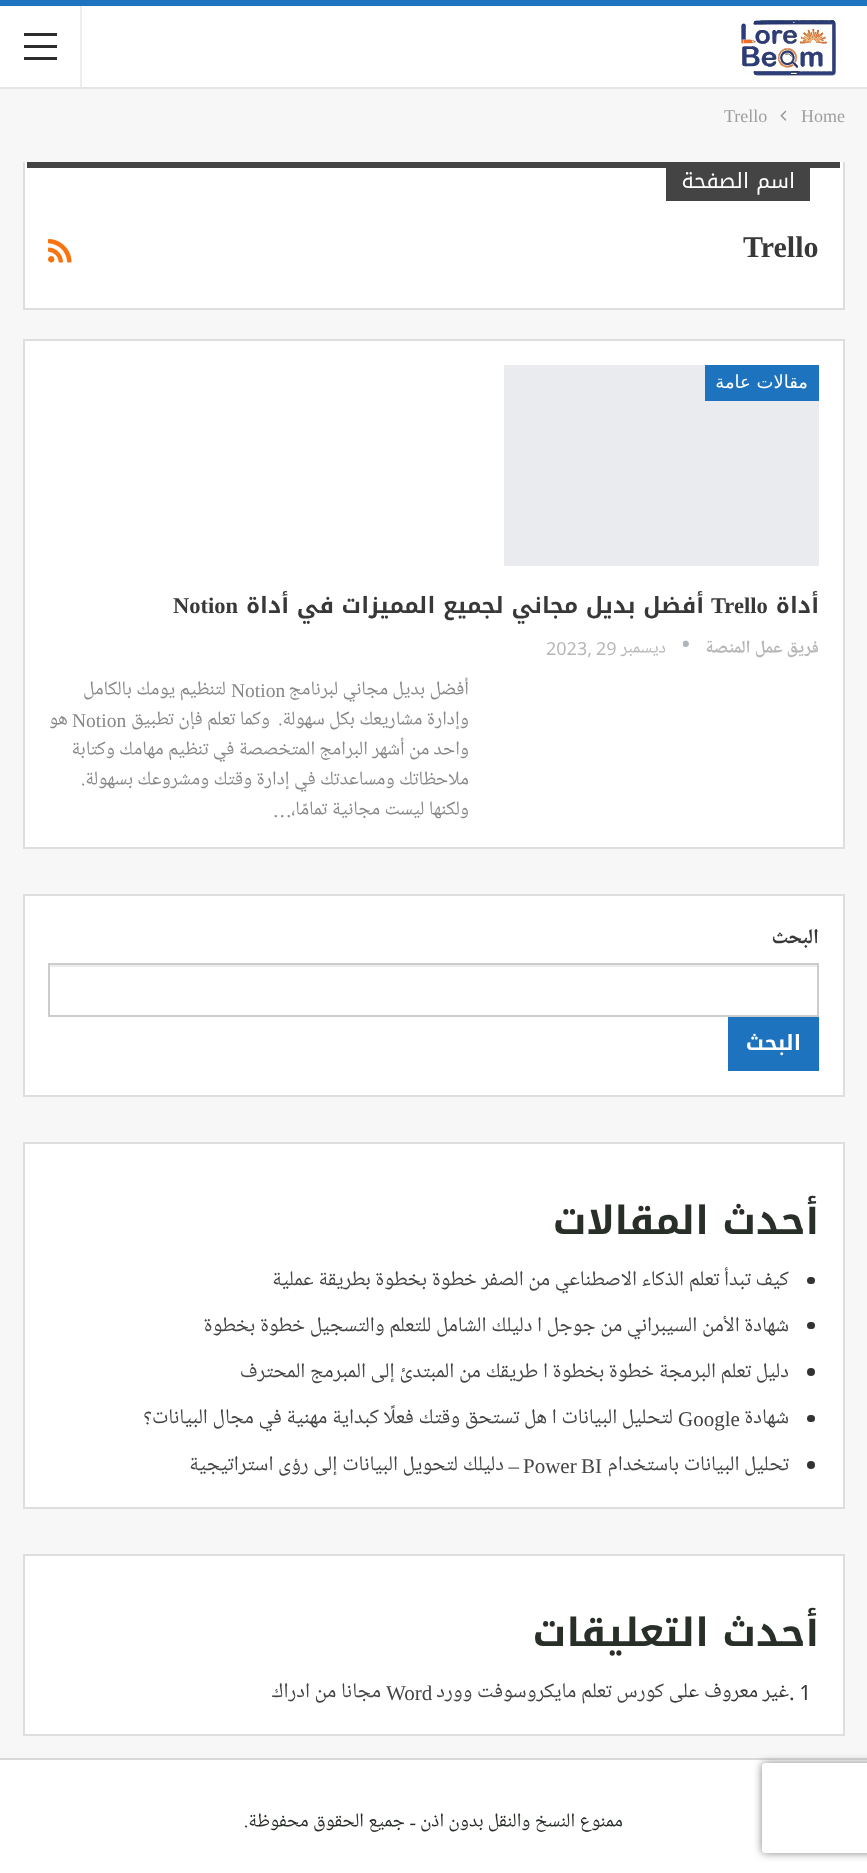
<!DOCTYPE html>
<meta charset="utf-8">
<style>body { margin: 0 } canvas { display: block }</style>
<canvas id="canvas" width="867" height="1873"></canvas>
<img id="img1" src="images/1.png" hidden>
<img id="img2" src="images/2.png" hidden>
<img id="img3" src="images/3.png" hidden>
<img id="img4" src="images/4.png" hidden>
<script>
window.onload = function () {
    const canvas = document.getElementById('canvas');
    const context = canvas.getContext('2d');
    context.miterLimit = 4;
    context.fontKerning = 'normal';

    context.fillStyle = 'rgb(30, 115, 190)';
    context.fillRect(0, 0, 867, 1873);
    context.fillStyle = 'rgb(247, 247, 247)';
    context.fillRect(0, 89, 867, 1669);
    context.fillStyle = 'rgb(255, 255, 255)';
    context.fillRect(0, 6, 867, 81);
    context.fillStyle = 'rgb(229, 229, 229)';
    context.fillRect(0, 87, 867, 2);
    context.drawImage(document.getElementById('img1'), 741, 20, 95, 56);
    context.fillStyle = 'rgb(237, 237, 237)';
    context.fillRect(80, 6, 2, 81);
    context.fillStyle = 'rgb(44, 44, 44)';
    context.fillRect(24, 45, 33, 3);
    context.fillRect(24, 33, 33, 3);
    context.fillRect(24, 57, 33, 3);
    context.drawImage(document.getElementById('img2'), 780, 110, 7, 11);
    context.fillStyle = 'rgb(255, 255, 255)';
    context.fillRect(25, 162, 818, 146);
    context.fillStyle = 'rgb(222, 222, 222)';
    context.fillRect(843, 162, 2, 147);
    context.fillRect(23, 308, 822, 2);
    context.fillRect(23, 162, 2, 147);
    context.fillStyle = 'rgb(68, 68, 68)';
    context.fillRect(27, 162, 813, 6);
    context.fillRect(666, 168, 144, 33);
    context.drawImage(document.getElementById('img3'), 48, 238, 24, 25);
    context.fillStyle = 'rgb(255, 255, 255)';
    context.beginPath();
    context.rect(24, 340, 820, 508);
    context.fill();
    context.strokeStyle = 'rgb(222, 222, 222)';
    context.lineWidth = 2;
    context.stroke();
    context.fillStyle = 'rgb(233, 235, 238)';
    context.fillRect(504, 365, 315, 201);
    context.fillStyle = 'rgb(30, 115, 190)';
    context.fillRect(705, 365, 114, 36);
    context.drawImage(document.getElementById('img4'), 683, 640, 6, 7);
    context.fillStyle = 'rgb(255, 255, 255)';
    context.beginPath();
    context.rect(24, 895, 820, 201);
    context.fill();
    context.stroke();
    context.fillStyle = 'rgb(236, 236, 236)';
    context.fillRect(50, 965, 768, 2);
    context.strokeStyle = 'rgb(204, 204, 204)';
    context.strokeRect(49, 964, 769, 52);
    context.fillStyle = 'rgb(30, 115, 190)';
    context.fillRect(728, 1017, 91, 54);
    context.fillStyle = 'rgb(255, 255, 255)';
    context.beginPath();
    context.rect(24, 1143, 820, 365);
    context.fill();
    context.strokeStyle = 'rgb(222, 222, 222)';
    context.stroke();
    context.fillStyle = 'rgb(51, 51, 51)';
    context.beginPath();
    context.roundRect(807, 1277, 8, 7, 3.5);
    context.fill();
    context.beginPath();
    context.roundRect(807, 1322, 8, 7, 3.5);
    context.fill();
    context.beginPath();
    context.arc(811, 1372, 4, 0, 2 * Math.PI);
    context.fill();
    context.beginPath();
    context.roundRect(807, 1415, 8, 7, 3.5);
    context.fill();
    context.beginPath();
    context.arc(811, 1465, 4, 0, 2 * Math.PI);
    context.fill();
    context.fillStyle = 'rgb(255, 255, 255)';
    context.beginPath();
    context.rect(24, 1555, 820, 180);
    context.fill();
    context.stroke();
    context.fillRect(0, 1760, 867, 113);
    context.fillStyle = 'rgb(217, 217, 217)';
    context.fillRect(0, 1758, 867, 2);
    context.save();
    context.beginPath();
    context.moveTo(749, 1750);
    context.lineTo(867, 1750);
    context.lineTo(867, 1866);
    context.lineTo(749, 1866);
    context.closePath();
    context.moveTo(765, 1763);
    context.lineTo(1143, 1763);
    context.bezierCurveTo(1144.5, 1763, 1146, 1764.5, 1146, 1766);
    context.lineTo(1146, 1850);
    context.bezierCurveTo(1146, 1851.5, 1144.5, 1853, 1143, 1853);
    context.lineTo(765, 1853);
    context.bezierCurveTo(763.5, 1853, 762, 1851.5, 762, 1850);
    context.lineTo(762, 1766);
    context.bezierCurveTo(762, 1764.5, 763.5, 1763, 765, 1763);
    context.closePath();
    context.clip('evenodd');
    context.fillStyle = 'rgb(128, 128, 128)';
    context.filter = 'blur(4px)';
    context.beginPath();
    context.roundRect(762, 1763, 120, 90, 3);
    context.fill();
    context.filter = 'none';
    context.restore();
    context.font = '18px Liberation Serif';
    context.fillStyle = 'rgb(158, 158, 158)';
    context.fillText('Home', 801, 122);
    context.fillText('Trello', 724, 122);
    context.direction = 'rtl';
    context.font = '21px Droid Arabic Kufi';
    context.fillStyle = 'rgb(255, 255, 255)';
    context.fillText('اسم الصفحة', 795, 188);
    context.direction = 'ltr';
    context.font = 'bold 30px Liberation Serif';
    context.fillStyle = 'rgb(56, 56, 56)';
    context.fillText('Trello', 743, 257);
    context.direction = 'rtl';
    context.font = '18px DejaVu Sans';
    context.fillStyle = 'rgb(255, 255, 255)';
    context.fillText('مقالات عامة', 808, 388);
    context.font = 'bold 22.5px Droid Arabic Kufi';
    context.fillStyle = 'rgb(56, 56, 56)';
    context.fillText('أداة', 819, 613);
    context.direction = 'ltr';
    context.font = 'bold 22.5px Liberation Serif';
    context.fillText('Trello', 711, 613);
    context.direction = 'rtl';
    context.font = 'bold 22.5px Droid Arabic Kufi';
    context.fillText('أفضل بديل مجاني لجميع المميزات في أداة', 704, 613);
    context.direction = 'ltr';
    context.font = 'bold 22.5px Liberation Serif';
    context.fillText('Notion', 173, 613);
    context.direction = 'rtl';
    context.font = 'bold 18px Noto Naskh Arabic UI';
    context.fillStyle = 'rgb(183, 183, 183)';
    context.fillText('فريق عمل المنصة', 819, 655);
    context.font = '18px Noto Naskh Arabic UI';
    context.fillText('ديسمبر', 666, 655);
    context.direction = 'ltr';
    context.fillText('2023, 29', 546, 655);
    context.direction = 'rtl';
    context.font = '19.5px Noto Naskh Arabic UI';
    context.fillStyle = 'rgb(136, 136, 136)';
    context.fillText('أفضل بديل مجاني لبرنامج', 469, 697);
    context.direction = 'ltr';
    context.font = '19.5px Liberation Serif';
    context.fillText('Notion', 231, 697);
    context.direction = 'rtl';
    context.font = '19.5px Noto Naskh Arabic UI';
    context.fillText('لتنظيم يومك بالكامل', 226, 697);
    context.fillText('وإدارة مشاريعك بكل سهولة.', 469, 727);
    context.fillText('وكما تعلم فإن تطبيق', 270, 727);
    context.direction = 'ltr';
    context.font = '19.5px Liberation Serif';
    context.fillText('Notion', 72, 727);
    context.direction = 'rtl';
    context.font = '19.5px Noto Naskh Arabic UI';
    context.fillText('هو', 68, 727);
    context.fillText('واحد من أشهر البرامج المتخصصة في تنظيم مهامك وكتابة', 469, 757);
    context.fillText('ملاحظاتك ومساعدتك في إدارة وقتك ومشروعك بسهولة.', 469, 787);
    context.fillText('ولكنها ليست مجانية تمامًا،', 469, 817);
    context.font = '19.5px Liberation Serif';
    context.fillText('…', 292, 817);
    context.font = 'bold 21px Noto Naskh Arabic UI';
    context.fillStyle = 'rgb(56, 56, 56)';
    context.fillText('البحث', 819, 946);
    context.font = 'bold 21px Droid Arabic Kufi';
    context.fillStyle = 'rgb(255, 255, 255)';
    context.fillText('البحث', 801, 1050);
    context.font = 'bold 39px Droid Arabic Kufi';
    context.fillStyle = 'rgb(40, 46, 40)';
    context.fillText('أحدث المقالات', 819, 1234);
    context.font = '21px Noto Naskh Arabic UI';
    context.fillStyle = 'rgb(68, 68, 68)';
    context.fillText('كيف تبدأ تعلم الذكاء الاصطناعي من الصفر خطوة بخطوة بطريقة عملية', 789, 1288);
    context.fillText('شهادة الأمن السيبراني من جوجل ا دليلك الشامل للتعلم والتسجيل خطوة بخطوة', 789, 1334);
    context.fillText('دليل تعلم البرمجة خطوة بخطوة ا طريقك من المبتدئ إلى المبرمج المحترف', 789, 1380);
    context.fillText('شهادة', 789, 1426);
    context.direction = 'ltr';
    context.font = '21px Liberation Serif';
    context.fillText('Google', 678, 1426);
    context.direction = 'rtl';
    context.font = '21px Noto Naskh Arabic UI';
    context.fillText('لتحليل البيانات ا هل تستحق وقتك فعلًا كبداية مهنية في مجال البيانات؟', 673, 1426);
    context.fillText('تحليل البيانات باستخدام', 789, 1473);
    context.wordSpacing = '-1px';
    context.direction = 'ltr';
    context.font = '21px Liberation Serif';
    context.fillText('Power BI', 523, 1473);
    context.wordSpacing = '0px';
    context.direction = 'rtl';
    context.fillText('–', 519, 1473);
    context.font = '21px Noto Naskh Arabic UI';
    context.fillText('دليلك لتحويل البيانات إلى رؤى استراتيجية', 504, 1473);
    context.font = 'bold 39px Droid Arabic Kufi';
    context.fillStyle = 'rgb(40, 46, 40)';
    context.fillText('أحدث التعليقات', 819, 1646);
    context.direction = 'ltr';
    context.font = '21px Noto Naskh Arabic UI';
    context.fillStyle = 'rgb(56, 56, 56)';
    context.fillText('. 1', 789, 1700);
    context.direction = 'rtl';
    context.fillText('غير معروف', 789, 1700);
    context.fillText('على', 699, 1700);
    context.fillStyle = 'rgb(68, 68, 68)';
    context.fillText('كورس تعلم مايكروسوفت وورد', 664, 1700);
    context.direction = 'ltr';
    context.font = '21px Liberation Serif';
    context.fillText('Word', 386, 1700);
    context.direction = 'rtl';
    context.font = '21px Noto Naskh Arabic UI';
    context.fillText('مجانا من ادراك', 381, 1700);
    context.font = '19.5px Noto Naskh Arabic UI';
    context.fillStyle = 'rgb(40, 46, 40)';
    context.fillText('ممنوع النسخ والنقل بدون اذن', 623, 1829);
    context.font = '19.5px Liberation Serif';
    context.fillText('-', 416, 1829);
    context.font = '19.5px Noto Naskh Arabic UI';
    context.fillText('جميع الحقوق محفوظة.', 405, 1829);
};
</script>
